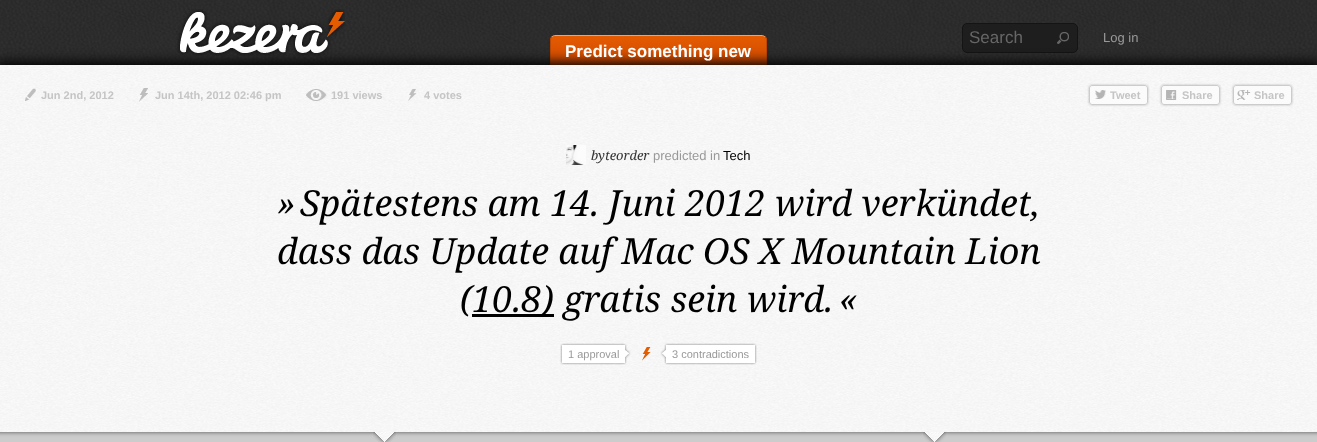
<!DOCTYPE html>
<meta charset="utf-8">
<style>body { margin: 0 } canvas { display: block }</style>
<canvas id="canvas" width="1317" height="442"></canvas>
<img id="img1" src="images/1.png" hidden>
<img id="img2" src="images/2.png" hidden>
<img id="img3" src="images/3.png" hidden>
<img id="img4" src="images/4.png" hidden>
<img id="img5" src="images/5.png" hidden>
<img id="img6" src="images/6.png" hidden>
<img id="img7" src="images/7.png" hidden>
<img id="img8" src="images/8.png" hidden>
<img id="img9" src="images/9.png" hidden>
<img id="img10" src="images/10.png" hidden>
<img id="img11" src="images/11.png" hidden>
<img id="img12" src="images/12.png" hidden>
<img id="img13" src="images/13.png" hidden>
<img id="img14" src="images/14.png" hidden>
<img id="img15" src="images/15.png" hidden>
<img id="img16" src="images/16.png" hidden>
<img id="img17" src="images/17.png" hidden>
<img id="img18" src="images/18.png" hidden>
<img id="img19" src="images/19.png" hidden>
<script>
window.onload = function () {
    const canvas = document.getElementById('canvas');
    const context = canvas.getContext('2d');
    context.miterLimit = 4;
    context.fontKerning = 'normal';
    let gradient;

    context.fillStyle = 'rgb(44, 44, 44)';
    context.fillRect(0, 0, 1317, 442);
    context.drawImage(document.getElementById('img1'), 0, 0, 1316, 65);
    context.drawImage(document.getElementById('img2'), 177, 9, 168, 47);
    context.fillStyle = 'rgb(30, 30, 30)';
    context.beginPath();
    context.roundRect(962.5, 23.5, 115, 29, 4.5);
    context.fill();
    context.strokeStyle = 'rgb(20, 20, 20)';
    context.stroke();
    context.drawImage(document.getElementById('img3'), 1057, 32, 12, 12);
    context.save();
    context.beginPath();
    context.roundRect(550, 35, 217, 39, 5);
    context.clip();
    gradient = context.createLinearGradient(659, 36, 659, 73);
    gradient.addColorStop(0, 'rgb(228, 91, 0)');
    gradient.addColorStop(0.86, 'rgb(205, 72, 0)');
    context.fillStyle = gradient;
    context.fillRect(550, 36, 217, 29);
    context.restore();
    context.beginPath();
    context.moveTo(552, 37);
    context.bezierCurveTo(552.5, 36, 554, 35.5, 555, 35.5);
    context.lineTo(762, 35.5);
    context.bezierCurveTo(763, 35.5, 764.5, 36, 765, 37);
    context.strokeStyle = 'rgb(240, 163, 112)';
    context.stroke();
    context.beginPath();
    context.moveTo(765, 37);
    context.bezierCurveTo(766, 37.5, 766.5, 39, 766.5, 40);
    context.lineTo(766.5, 69);
    context.bezierCurveTo(766.5, 70, 766, 71.5, 765, 72);
    context.strokeStyle = 'rgb(189, 70, 0)';
    context.stroke();
    context.beginPath();
    context.moveTo(552, 72);
    context.bezierCurveTo(551, 71.5, 550.5, 70, 550.5, 69);
    context.lineTo(550.5, 40);
    context.bezierCurveTo(550.5, 39, 551, 37.5, 552, 37);
    context.stroke();
    context.fillStyle = 'rgb(0, 0, 0)';
    context.filter = 'blur(6px)';
    context.beginPath();
    context.rect(-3, 62, 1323, 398);
    context.fill();
    context.filter = 'none';
    context.drawImage(document.getElementById('img4'), 0, 65, 1317, 367);
    context.drawImage(document.getElementById('img5'), 25, 88, 11, 13);
    context.drawImage(document.getElementById('img6'), 139, 88, 9, 14);
    context.drawImage(document.getElementById('img7'), 306, 89, 21, 12);
    context.drawImage(document.getElementById('img8'), 408, 89, 9, 12);
    context.fillStyle = 'rgba(0, 0, 0, 0.25)';
    context.filter = 'blur(1px)';
    context.beginPath();
    context.roundRect(1089, 85, 59, 20, 3);
    context.fill();
    context.filter = 'none';
    context.fillStyle = 'rgb(251, 251, 251)';
    context.beginPath();
    context.roundRect(1089, 85, 59, 20, 3);
    context.fill();
    context.drawImage(document.getElementById('img9'), 1095, 90, 11, 9);
    context.beginPath();
    context.roundRect(1089.5, 85.5, 58, 19, 2.5);
    context.strokeStyle = 'rgb(204, 204, 204)';
    context.stroke();
    context.fillStyle = 'rgba(0, 0, 0, 0.25)';
    context.filter = 'blur(1px)';
    context.beginPath();
    context.roundRect(1161, 85, 59, 20, 3);
    context.fill();
    context.filter = 'none';
    context.fillStyle = 'rgb(251, 251, 251)';
    context.beginPath();
    context.roundRect(1161, 85, 59, 20, 3);
    context.fill();
    context.drawImage(document.getElementById('img10'), 1166, 90, 11, 10);
    context.beginPath();
    context.roundRect(1161.5, 85.5, 58, 19, 2.5);
    context.stroke();
    context.fillStyle = 'rgba(0, 0, 0, 0.25)';
    context.filter = 'blur(1px)';
    context.beginPath();
    context.roundRect(1233, 85, 59, 20, 3);
    context.fill();
    context.filter = 'none';
    context.fillStyle = 'rgb(251, 251, 251)';
    context.beginPath();
    context.roundRect(1233, 85, 59, 20, 3);
    context.fill();
    context.drawImage(document.getElementById('img11'), 1237, 90, 14, 10);
    context.beginPath();
    context.roundRect(1233.5, 85.5, 58, 19, 2.5);
    context.stroke();
    context.drawImage(document.getElementById('img12'), 566, 145, 20, 20);
    context.fillStyle = 'rgb(0, 0, 0)';
    context.fillRect(472, 314, 82, 3);
    context.drawImage(document.getElementById('img13'), 560, 343, 59, 22);
    context.drawImage(document.getElementById('img14'), 619, 343, 12, 22);
    context.drawImage(document.getElementById('img15'), 642, 347, 9, 14);
    context.drawImage(document.getElementById('img16'), 660, 343, 89, 22);
    context.drawImage(document.getElementById('img17'), 749, 343, 8, 22);
    context.drawImage(document.getElementById('img18'), 0, 432, 1317, 10);
    context.drawImage(document.getElementById('img19'), 373, 432, 23, 10);
    context.drawImage(document.getElementById('img19'), 923, 432, 23, 10);
    context.font = '17px Liberation Sans';
    context.fillStyle = 'rgb(102, 102, 102)';
    context.fillText('Search', 969, 43);
    context.font = '13px Liberation Sans';
    context.fillStyle = 'rgb(153, 153, 153)';
    context.fillText('Log in', 1103, 42);
    context.font = 'bold 17px Liberation Sans';
    context.fillStyle = 'rgb(255, 255, 255)';
    context.fillText('Predict something new', 565, 57);
    context.font = 'bold 11px Liberation Sans';
    context.fillStyle = 'rgb(197, 197, 197)';
    context.fillText('Jun 2nd, 2012', 41, 99);
    context.fillText('Jun 14th, 2012 02:46 pm', 155, 99);
    context.fillText('191 views', 331, 99);
    context.fillText('4 votes', 424, 99);
    context.fillText('Tweet', 1110, 99);
    context.fillText('Share', 1182, 99);
    context.fillText('Share', 1254, 99);
    context.font = 'italic 13px Noto Serif';
    context.fillStyle = 'rgb(51, 51, 51)';
    context.fillText('byteorder', 591, 160);
    context.font = '13px Liberation Sans';
    context.fillStyle = 'rgb(153, 153, 153)';
    context.fillText('predicted in', 653, 160);
    context.fillStyle = 'rgb(0, 0, 0)';
    context.fillText('Tech', 723, 160);
    context.font = 'italic 36px Noto Serif';
    context.fillText('»', 277, 216);
    context.fillText('Spätestens am 14. Juni 2012 wird verkündet,', 300, 216);
    context.fillText('dass das Update auf Mac OS X Mountain Lion', 277, 264);
    context.fillText('(', 460, 312);
    context.fillText('10.8) gratis sein wird.', 472, 312);
    context.fillText('«', 839, 312);
    context.font = '11px Liberation Sans';
    context.fillStyle = 'rgb(153, 153, 153)';
    context.fillText('1 approval', 568, 358);
    context.fillText('3 contradictions', 672, 358);
};
</script>
